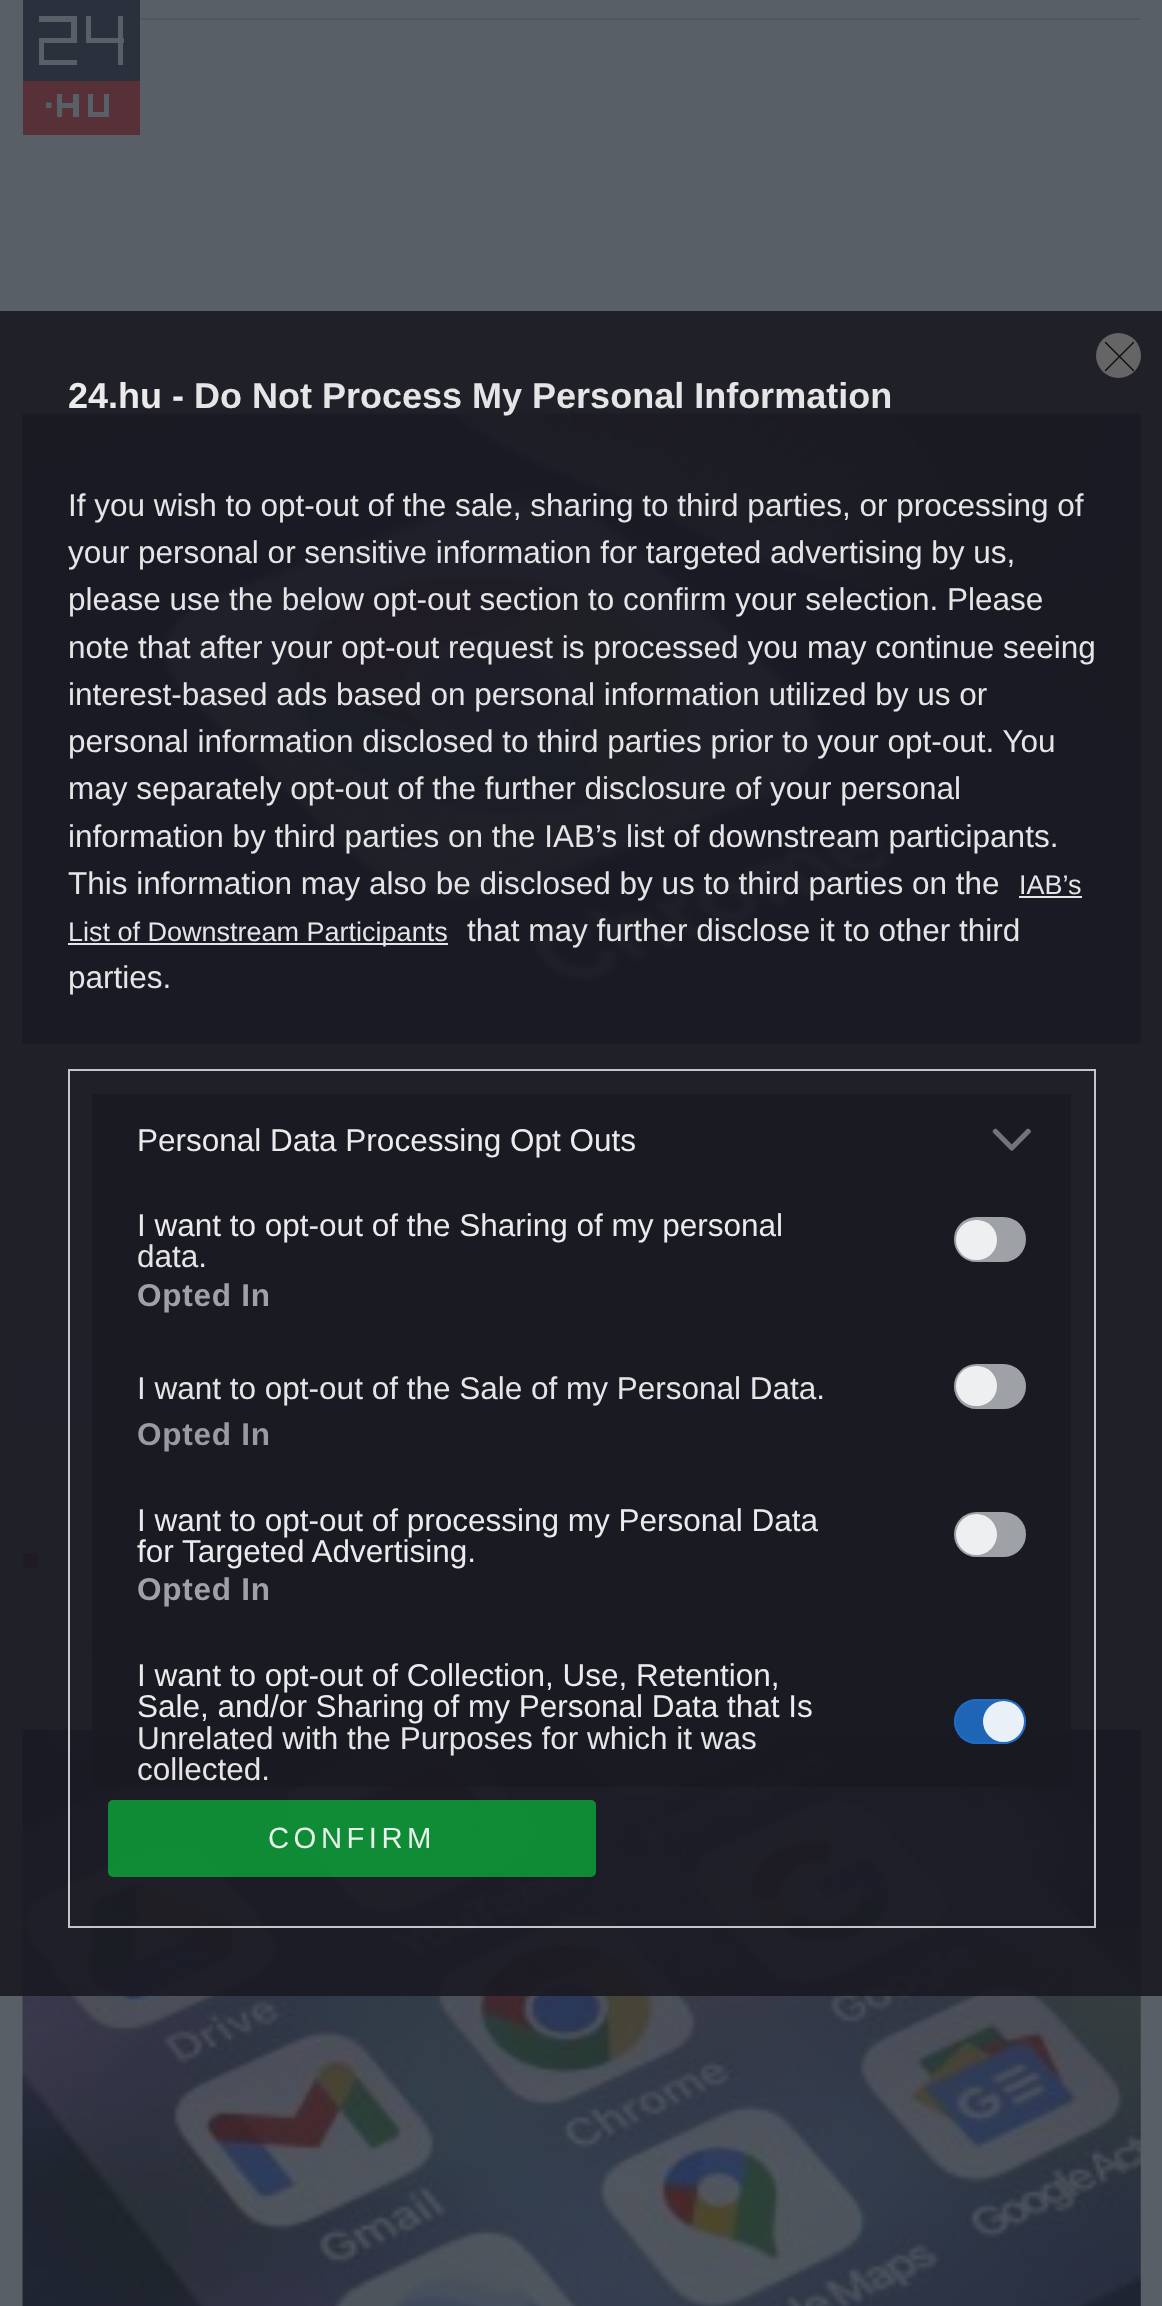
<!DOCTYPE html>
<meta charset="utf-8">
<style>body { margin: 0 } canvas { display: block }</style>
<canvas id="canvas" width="1162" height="2306"></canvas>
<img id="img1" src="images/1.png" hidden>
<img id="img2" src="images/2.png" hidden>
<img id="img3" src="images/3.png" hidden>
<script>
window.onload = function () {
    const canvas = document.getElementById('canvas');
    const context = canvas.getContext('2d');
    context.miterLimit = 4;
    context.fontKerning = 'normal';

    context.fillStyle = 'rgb(89, 95, 103)';
    context.fillRect(0, 0, 1162, 2306);
    context.fillStyle = 'rgb(88, 49, 56)';
    context.fillRect(23, 81, 117, 54);
    context.fillStyle = 'rgb(42, 48, 60)';
    context.fillRect(23, 0, 117, 81);
    context.fillStyle = 'rgb(89, 95, 103)';
    context.fillRect(118, 16, 5, 49);
    context.fillRect(39, 16, 38, 6);
    context.fillRect(71, 16, 6, 27);
    context.fillRect(39, 38, 38, 5);
    context.fillRect(86, 38, 38, 5);
    context.fillRect(39, 38, 5, 27);
    context.fillRect(39, 60, 38, 5);
    context.fillRect(86, 16, 5, 27);
    context.fillRect(88, 94, 5, 23);
    context.fillRect(88, 112, 21, 5);
    context.fillRect(104, 94, 5, 23);
    context.beginPath();
    context.moveTo(51.5, 102.5);
    context.lineTo(46, 102.5);
    context.lineTo(46, 108);
    context.lineTo(51.5, 108);
    context.closePath();
    context.fill();
    context.fillRect(57, 94, 5, 23);
    context.fillRect(61, 103, 13, 5);
    context.fillRect(73, 94, 6, 23);
    context.fillStyle = 'rgb(81, 87, 96)';
    context.fillRect(140, 18, 1001, 2);
    context.drawImage(document.getElementById('img1'), 22, 413, 1119, 631);
    context.fillStyle = 'rgb(82, 88, 96)';
    context.fillRect(23, 412, 1118, 2);
    context.fillStyle = 'rgb(81, 87, 96)';
    context.fillRect(23, 1647, 1118, 2);
    context.fillStyle = 'rgb(86, 92, 100)';
    context.fillRect(23, 1359, 132, 68);
    context.fillStyle = 'rgb(88, 49, 56)';
    context.fillRect(23, 1553, 15, 15);
    context.drawImage(document.getElementById('img2'), 22, 1729, 1119, 577);
    context.fillStyle = 'rgba(25, 25, 34, 0.9)';
    context.fillRect(0, 311, 1162, 1685);
    context.fillStyle = 'rgb(101, 101, 102)';
    context.beginPath();
    context.arc(1118.5, 355.5, 22.5, 0, 2 * Math.PI);
    context.fill();
    context.beginPath();
    context.moveTo(1105.5, 342.5);
    context.lineTo(1133.5, 370.5);
    context.moveTo(1133.5, 342.5);
    context.lineTo(1105.5, 370.5);
    context.strokeStyle = 'rgb(9, 9, 10)';
    context.lineWidth = 1.2;
    context.lineCap = 'round';
    context.lineJoin = 'round';
    context.stroke();
    context.fillStyle = 'rgb(229, 229, 231)';
    context.fillRect(1019, 896, 63, 2);
    context.fillStyle = 'rgb(228, 229, 231)';
    context.fillRect(68, 943, 380, 2);
    context.strokeStyle = 'rgba(216, 216, 216, 0.9)';
    context.lineWidth = 2;
    context.lineJoin = 'miter';
    context.strokeRect(69, 1070, 1026, 857);
    context.fillStyle = 'rgba(25, 25, 34, 0.9)';
    context.fillRect(92, 1094, 979, 693);
    context.drawImage(document.getElementById('img3'), 992, 1128, 39, 23);
    context.fillStyle = 'rgb(158, 162, 167)';
    context.beginPath();
    context.roundRect(955, 1218, 70, 43, 21.5);
    context.fill();
    context.strokeStyle = 'rgb(158, 162, 167)';
    context.stroke();
    context.fillStyle = 'rgb(238, 239, 240)';
    context.beginPath();
    context.roundRect(956, 1220, 41, 40, 20);
    context.fill();
    context.fillStyle = 'rgb(158, 162, 167)';
    context.beginPath();
    context.roundRect(955, 1365, 70, 43, 21.5);
    context.fill();
    context.stroke();
    context.fillStyle = 'rgb(238, 239, 240)';
    context.beginPath();
    context.roundRect(956, 1366, 41, 40, 20);
    context.fill();
    context.fillStyle = 'rgb(158, 162, 167)';
    context.beginPath();
    context.roundRect(955, 1513, 70, 43, 21.5);
    context.fill();
    context.stroke();
    context.fillStyle = 'rgb(238, 239, 240)';
    context.beginPath();
    context.arc(976.5, 1534.5, 20.5, 0, 2 * Math.PI);
    context.fill();
    context.fillStyle = 'rgb(31, 101, 181)';
    context.beginPath();
    context.roundRect(954, 1699, 72, 45, 22.5);
    context.fill();
    context.beginPath();
    context.roundRect(955, 1700, 70, 43, 21.5);
    context.strokeStyle = 'rgba(32, 109, 197, 0.9)';
    context.stroke();
    context.fillStyle = 'rgba(255, 255, 255, 0.9)';
    context.beginPath();
    context.arc(1003.5, 1721.5, 20.5, 0, 2 * Math.PI);
    context.fill();
    context.fillStyle = 'rgba(14, 152, 57, 0.9)';
    context.beginPath();
    context.roundRect(108, 1800, 488, 77, 5);
    context.fill();
    context.font = 'bold 36px Liberation Sans';
    context.fillStyle = 'rgb(235, 235, 236)';
    context.fillText('24.hu -', 68, 408);
    context.fillStyle = 'rgb(229, 229, 230)';
    context.fillText('Do Not Process My Personal Information', 194, 408);
    context.font = '31.5px Liberation Sans';
    context.fillText('If you wish to opt-out of the sale, sharing to third parties, or processing of', 68, 516);
    context.fillText('your personal or sensitive information for targeted advertising by us,', 68, 563);
    context.fillText('please use the below opt-out section to confirm your selection. Please', 68, 610);
    context.fillText('note that after your opt-out request is processed you may continue seeing', 68, 658);
    context.fillText('interest-based ads based on personal information utilized by us or', 68, 705);
    context.fillText('personal information disclosed to third parties prior to your opt-out. You', 68, 752);
    context.fillText('may separately opt-out of the further disclosure of your personal', 68, 799);
    context.fillText('information by third parties on the IAB’s list of downstream participants.', 68, 847);
    context.fillText('This information may also be disclosed by us to third parties on the', 68, 894);
    context.font = '27px Liberation Sans';
    context.fillText('IAB’s', 1019, 894);
    context.fillText('List of Downstream Participants', 68, 941);
    context.font = '31.5px Liberation Sans';
    context.fillText('that may further disclose it to other third', 467, 941);
    context.fillText('parties.', 68, 988);
    context.fillStyle = 'rgb(235, 235, 236)';
    context.fillText('Personal Data Processing Opt Outs', 137, 1151);
    context.fillText('I want to opt-out of the Sharing of my personal', 137, 1236);
    context.fillStyle = 'rgb(229, 229, 230)';
    context.fillText('data.', 137, 1267);
    context.letterSpacing = '0.75px';
    context.font = 'bold 31.5px Liberation Sans';
    context.fillStyle = 'rgb(158, 162, 167)';
    context.fillText('Opted In', 137, 1306);
    context.letterSpacing = '0px';
    context.font = '31.5px Liberation Sans';
    context.fillStyle = 'rgb(229, 229, 230)';
    context.fillText('I want to opt-out of the Sale of my Personal Data.', 137, 1399);
    context.letterSpacing = '0.75px';
    context.font = 'bold 31.5px Liberation Sans';
    context.fillStyle = 'rgb(152, 155, 160)';
    context.fillText('Opted In', 137, 1445);
    context.letterSpacing = '0px';
    context.font = '31.5px Liberation Sans';
    context.fillStyle = 'rgb(235, 235, 236)';
    context.fillText('I want to opt-out of processing my Personal Data', 137, 1531);
    context.fillText('for Targeted Advertising.', 137, 1562);
    context.letterSpacing = '0.75px';
    context.font = 'bold 31.5px Liberation Sans';
    context.fillStyle = 'rgb(158, 162, 167)';
    context.fillText('Opted In', 137, 1600);
    context.letterSpacing = '0px';
    context.font = '31.5px Liberation Sans';
    context.fillStyle = 'rgb(235, 235, 236)';
    context.fillText('I want to opt-out of Collection, Use, Retention,', 137, 1686);
    context.fillText('Sale, and/or Sharing of my Personal Data that Is', 137, 1717);
    context.fillStyle = 'rgb(229, 229, 230)';
    context.fillText('Unrelated with the Purposes for which it was', 137, 1749);
    context.fillText('collected.', 137, 1780);
    context.letterSpacing = '4.5px';
    context.font = '29.25px Liberation Sans';
    context.fillStyle = 'rgb(231, 243, 235)';
    context.fillText('CONFIRM', 268, 1848);
};
</script>
